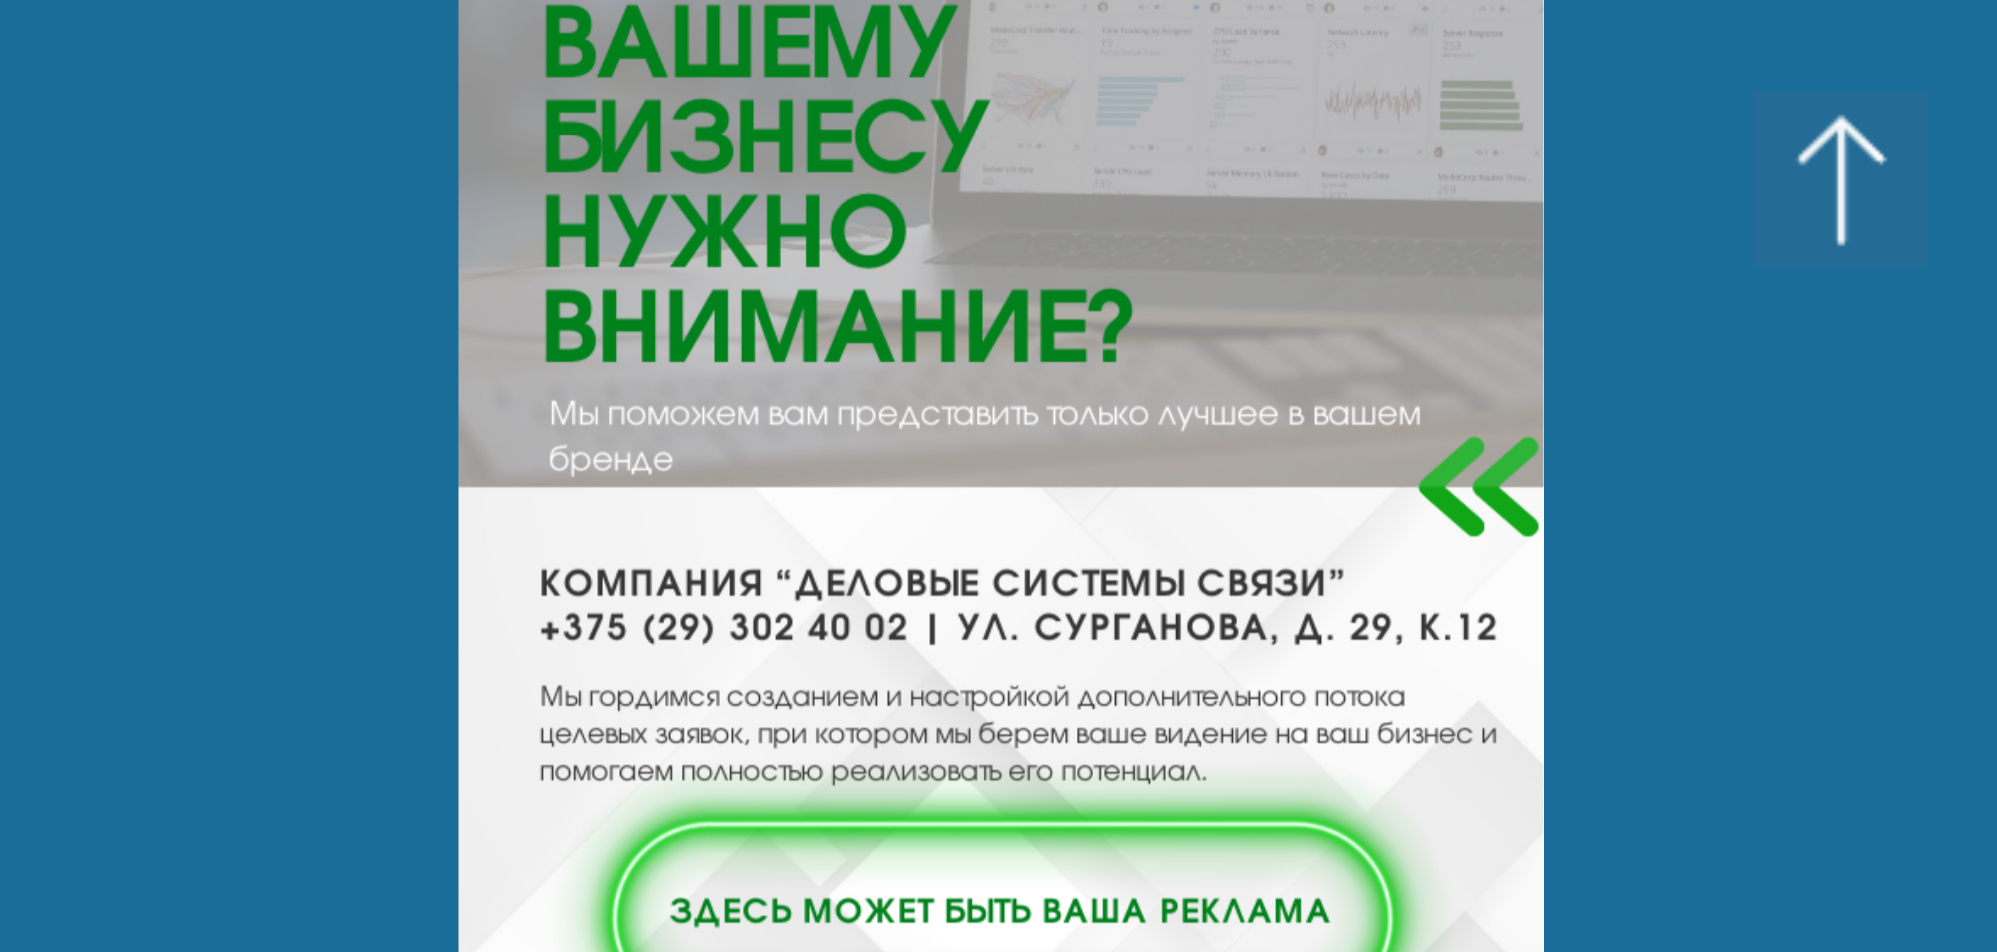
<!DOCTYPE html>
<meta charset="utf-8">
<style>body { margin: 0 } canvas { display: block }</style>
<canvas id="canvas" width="1997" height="952"></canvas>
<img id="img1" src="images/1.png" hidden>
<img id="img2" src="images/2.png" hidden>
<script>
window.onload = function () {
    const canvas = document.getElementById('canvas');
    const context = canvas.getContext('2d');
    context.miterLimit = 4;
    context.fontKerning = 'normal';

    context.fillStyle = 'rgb(26, 108, 153)';
    context.fillRect(0, 0, 1997, 952);
    context.fillStyle = 'rgb(255, 255, 255)';
    context.fillRect(1543, 0, 1, 952);
    context.drawImage(document.getElementById('img1'), 458, 0, 1086, 952);
    context.drawImage(document.getElementById('img2'), 1753, 91, 176, 175);
};
</script>
